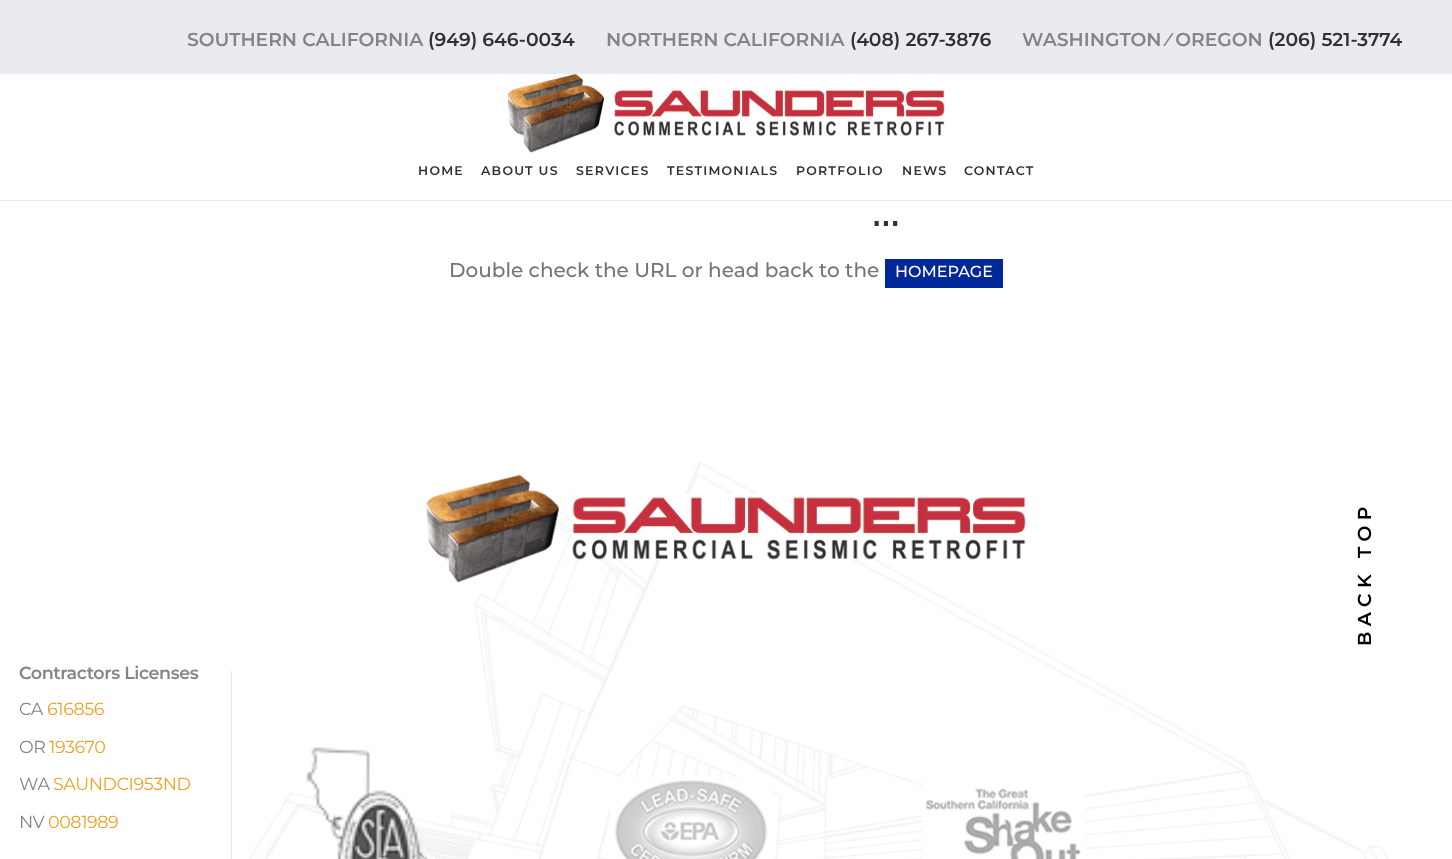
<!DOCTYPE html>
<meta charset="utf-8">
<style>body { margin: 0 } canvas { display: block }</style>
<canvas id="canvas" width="1452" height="859"></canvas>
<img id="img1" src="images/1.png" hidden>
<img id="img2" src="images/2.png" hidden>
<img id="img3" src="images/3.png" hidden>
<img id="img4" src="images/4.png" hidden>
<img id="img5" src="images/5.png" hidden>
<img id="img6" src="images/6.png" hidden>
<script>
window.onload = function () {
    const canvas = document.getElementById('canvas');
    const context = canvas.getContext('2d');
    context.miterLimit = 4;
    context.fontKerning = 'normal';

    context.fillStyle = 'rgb(255, 255, 255)';
    context.fillRect(0, 0, 1452, 859);
    context.fillStyle = 'rgb(233, 235, 239)';
    context.fillRect(0, 200, 1452, 1);
    context.fillRect(0, 0, 1452, 74);
    context.drawImage(document.getElementById('img1'), 508, 74, 437, 79);
    context.fillStyle = 'rgb(0, 40, 155)';
    context.fillRect(885, 259, 118, 29);
    context.drawImage(document.getElementById('img2'), 249, 461, 1140, 398);
    context.drawImage(document.getElementById('img3'), 426, 474, 600, 109);
    context.fillStyle = 'rgb(230, 230, 230)';
    context.fillRect(231, 671, 1, 188);
    context.drawImage(document.getElementById('img4'), 306, 747, 124, 112);
    context.drawImage(document.getElementById('img5'), 610, 777, 163, 82);
    context.drawImage(document.getElementById('img6'), 922, 784, 163, 75);
    context.font = '600 18.75px Montserrat';
    context.fillStyle = 'rgb(134, 133, 133)';
    context.fillText('SOUTHERN CALIFORNIA', 187, 46);
    context.fillStyle = 'rgb(49, 49, 49)';
    context.fillText('(949) 646-0034', 428, 46);
    context.fillStyle = 'rgb(134, 133, 133)';
    context.fillText('NORTHERN CALIFORNIA', 606, 46);
    context.fillStyle = 'rgb(49, 49, 49)';
    context.fillText('(408) 267-3876', 850, 46);
    context.fillStyle = 'rgb(134, 133, 133)';
    context.fillText('WASHINGTON ⁄ OREGON', 1022, 46);
    context.fillStyle = 'rgb(49, 49, 49)';
    context.fillText('(206) 521-3774', 1268, 46);
    context.letterSpacing = '1.25px';
    context.font = '600 12.5px Montserrat';
    context.fillText('HOME', 418, 175);
    context.fillText('ABOUT US', 481, 175);
    context.fillText('SERVICES', 576, 175);
    context.fillText('TESTIMONIALS', 667, 175);
    context.fillText('PORTFOLIO', 796, 175);
    context.fillText('NEWS', 902, 175);
    context.fillText('CONTACT', 964, 175);
    context.letterSpacing = '0px';
    context.font = '500 56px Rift';
    context.fillText('...', 872, 226);
    context.font = '500 20px Montserrat';
    context.fillStyle = 'rgb(116, 116, 116)';
    context.fillText('Double check the URL or head back to the', 449, 277);
    context.font = '500 16px Montserrat';
    context.fillStyle = 'rgb(254, 254, 254)';
    context.fillText('HOMEPAGE', 895, 277);
    context.letterSpacing = '5.5px';
    context.font = '600 18.75px Montserrat';
    context.fillStyle = 'rgb(0, 0, 0)';
    context.save();
    context.translate(1371, 646);
    context.rotate(-90 * Math.PI / 180);
    context.fillText('BACK TOP', 0, 0);
    context.restore();
    context.letterSpacing = '-0.4px';
    context.font = '600 17.5px Montserrat';
    context.fillStyle = 'rgb(134, 133, 133)';
    context.fillText('Contractors Licenses', 19, 679);
    context.font = '17.5px Montserrat';
    context.fillText('CA', 19, 715);
    context.fillStyle = 'rgb(233, 164, 39)';
    context.fillText('616856', 47, 715);
    context.fillStyle = 'rgb(134, 133, 133)';
    context.fillText('OR', 19, 753);
    context.fillStyle = 'rgb(233, 164, 39)';
    context.fillText('193670', 49, 753);
    context.fillStyle = 'rgb(134, 133, 133)';
    context.fillText('WA', 19, 790);
    context.fillStyle = 'rgb(233, 164, 39)';
    context.fillText('SAUNDCI953ND', 53, 790);
    context.fillStyle = 'rgb(134, 133, 133)';
    context.fillText('NV', 19, 828);
    context.fillStyle = 'rgb(233, 164, 39)';
    context.fillText('0081989', 48, 828);
};
</script>
